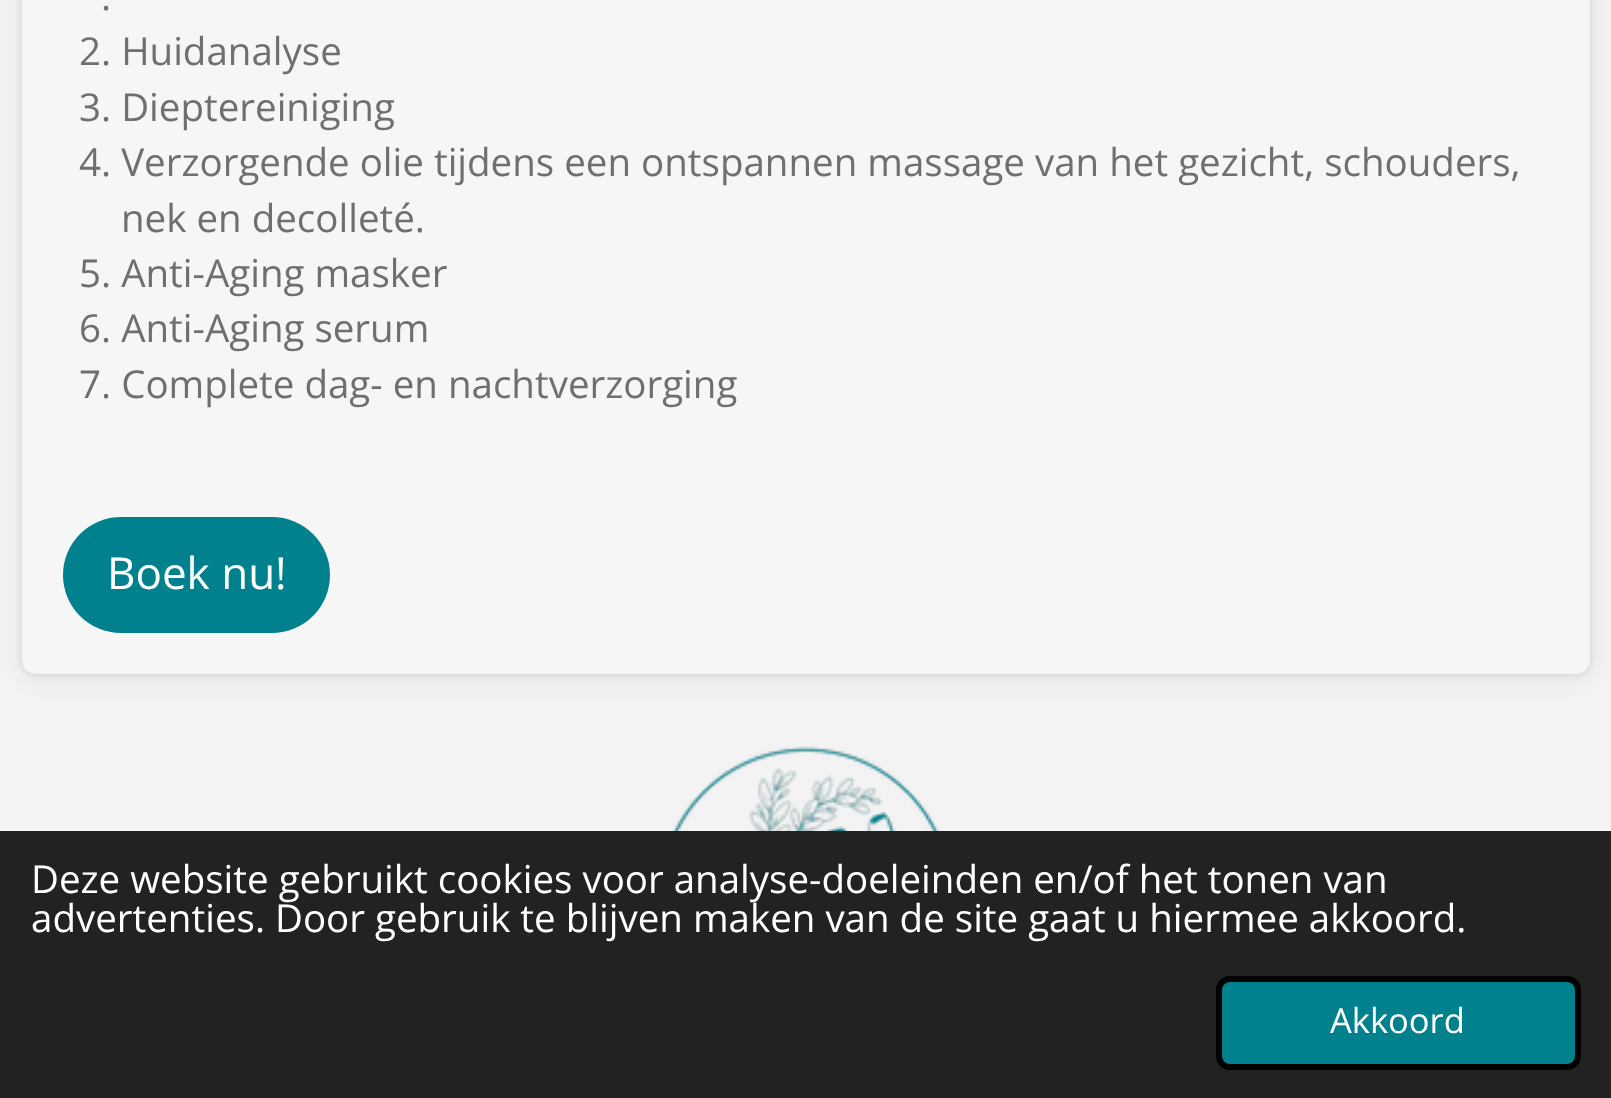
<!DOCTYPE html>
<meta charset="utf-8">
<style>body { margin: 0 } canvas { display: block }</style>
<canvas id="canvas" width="1611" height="1098"></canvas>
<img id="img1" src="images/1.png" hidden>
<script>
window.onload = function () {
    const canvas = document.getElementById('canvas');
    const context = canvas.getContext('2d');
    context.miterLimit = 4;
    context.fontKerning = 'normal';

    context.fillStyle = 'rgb(244, 243, 243)';
    context.fillRect(0, 0, 1611, 1098);
    context.fillStyle = 'rgba(0, 0, 0, 0.1)';
    context.filter = 'blur(3px)';
    context.beginPath();
    context.roundRect(22, -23, 1568, 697, 14);
    context.fill();
    context.filter = 'none';
    context.fillStyle = 'rgba(0, 0, 0, 0.07)';
    context.filter = 'blur(11px)';
    context.beginPath();
    context.roundRect(22, -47, 1568, 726, 14);
    context.fill();
    context.filter = 'none';
    context.fillStyle = 'rgb(246, 246, 246)';
    context.beginPath();
    context.roundRect(22, -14, 1568, 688, 14);
    context.fill();
    context.fillStyle = 'rgb(1, 129, 142)';
    context.beginPath();
    context.roundRect(63, 517, 267, 116, 58);
    context.fill();
    context.drawImage(document.getElementById('img1'), 672, 746, 267, 85);
    context.fillStyle = 'rgb(34, 34, 34)';
    context.fillRect(0, 831, 1611, 267);
    context.fillStyle = 'rgb(1, 129, 142)';
    context.beginPath();
    context.roundRect(1219, 979, 359, 88, 11);
    context.fill();
    context.strokeStyle = 'rgb(0, 0, 0)';
    context.lineWidth = 6;
    context.stroke();
    context.font = '38.5px Open Sans';
    context.fillStyle = 'rgb(111, 111, 111)';
    context.fillText('.', 101, 10);
    context.fillText('2. Huidanalyse', 79, 65);
    context.fillText('3. Dieptereiniging', 79, 121);
    context.fillText('4. Verzorgende olie tijdens een ontspannen massage van het gezicht, schouders,', 79, 176);
    context.fillText('nek en decolleté.', 121, 232);
    context.fillText('5. Anti-Aging masker', 79, 287);
    context.fillText('6. Anti-Aging serum', 79, 342);
    context.fillText('7. Complete dag- en nachtverzorging', 79, 398);
    context.font = '44px Open Sans';
    context.fillStyle = 'rgb(255, 255, 255)';
    context.fillText('Boek nu!', 107, 589);
    context.font = '38.5px Open Sans';
    context.fillText('Deze website gebruikt cookies voor analyse-doeleinden en/of het tonen van', 31, 893);
    context.fillText('advertenties. Door gebruik te blijven maken van de site gaat u hiermee akkoord.', 31, 932);
    context.font = '34.5px Open Sans';
    context.fillText('Akkoord', 1330, 1033);
};
</script>
